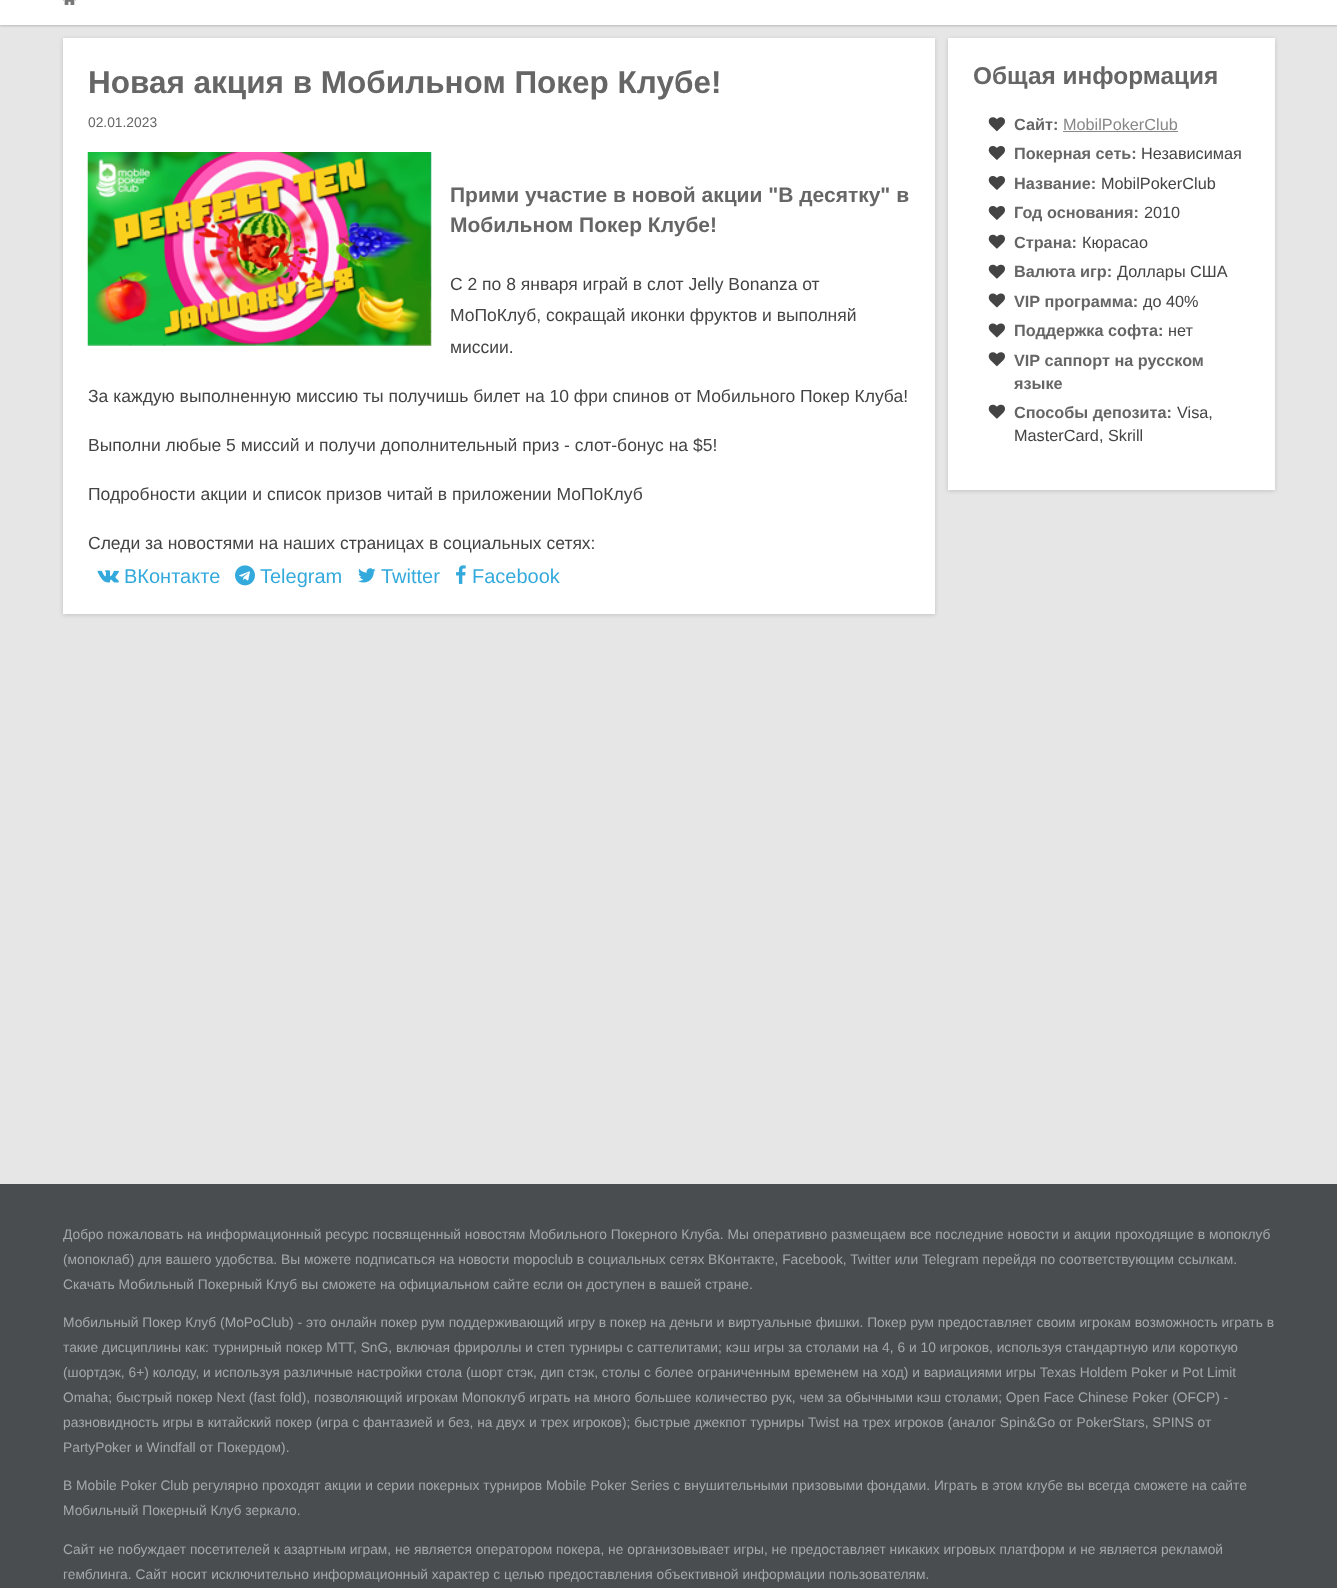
<!DOCTYPE html>
<meta charset="utf-8">
<style>body { margin: 0 } canvas { display: block }</style>
<canvas id="canvas" width="1337" height="1588"></canvas>
<img id="img1" src="images/1.png" hidden>
<img id="img2" src="images/2.png" hidden>
<img id="img3" src="images/3.png" hidden>
<img id="img4" src="images/4.png" hidden>
<img id="img5" src="images/5.png" hidden>
<img id="img6" src="images/6.png" hidden>
<img id="img7" src="images/7.png" hidden>
<img id="img8" src="images/8.png" hidden>
<img id="img9" src="images/9.png" hidden>
<img id="img10" src="images/10.png" hidden>
<script>
window.onload = function () {
    const canvas = document.getElementById('canvas');
    const context = canvas.getContext('2d');
    context.miterLimit = 4;
    context.fontKerning = 'normal';

    context.fillStyle = 'rgb(230, 230, 230)';
    context.fillRect(0, 0, 1337, 1588);
    context.fillStyle = 'rgba(0, 0, 0, 0.2)';
    context.filter = 'blur(1px)';
    context.beginPath();
    context.rect(0, -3, 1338, 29);
    context.fill();
    context.filter = 'none';
    context.fillStyle = 'rgb(255, 255, 255)';
    context.fillRect(0, 0, 1337, 25);
    context.drawImage(document.getElementById('img1'), 63, 0, 13, 5);
    context.fillStyle = 'rgba(0, 1, 2, 0.15)';
    context.filter = 'blur(2px)';
    context.beginPath();
    context.rect(63, 39, 872, 576);
    context.fill();
    context.filter = 'none';
    context.fillStyle = 'rgb(255, 255, 255)';
    context.fillRect(63, 38, 872, 576);
    context.drawImage(document.getElementById('img2'), 87, 152, 345, 194);
    context.drawImage(document.getElementById('img3'), 97, 570, 22, 13);
    context.drawImage(document.getElementById('img4'), 235, 565, 20, 21);
    context.drawImage(document.getElementById('img5'), 358, 568, 18, 15);
    context.drawImage(document.getElementById('img6'), 456, 565, 10, 19);
    context.fillStyle = 'rgba(0, 1, 2, 0.15)';
    context.filter = 'blur(2px)';
    context.beginPath();
    context.rect(948, 39, 327, 452);
    context.fill();
    context.filter = 'none';
    context.fillStyle = 'rgb(255, 255, 255)';
    context.fillRect(948, 38, 327, 452);
    context.drawImage(document.getElementById('img7'), 988, 117, 17, 15);
    context.fillStyle = 'rgb(136, 136, 136)';
    context.fillRect(1063, 131, 115, 1);
    context.drawImage(document.getElementById('img8'), 988, 146, 17, 14);
    context.drawImage(document.getElementById('img8'), 988, 176, 17, 14);
    context.drawImage(document.getElementById('img8'), 988, 206, 17, 14);
    context.drawImage(document.getElementById('img9'), 988, 234, 17, 15);
    context.drawImage(document.getElementById('img9'), 988, 264, 17, 15);
    context.drawImage(document.getElementById('img10'), 988, 293, 17, 15);
    context.drawImage(document.getElementById('img10'), 988, 323, 17, 15);
    context.drawImage(document.getElementById('img7'), 988, 352, 17, 15);
    context.drawImage(document.getElementById('img9'), 988, 404, 17, 15);
    context.fillStyle = 'rgb(73, 77, 79)';
    context.fillRect(0, 1184, 1337, 404);
    context.font = 'bold 31.5px Liberation Sans';
    context.fillStyle = 'rgb(102, 102, 102)';
    context.fillText('Новая акция в Мобильном Покер Клубе!', 88, 93);
    context.font = '13.8px Liberation Sans';
    context.fillText('02.01.2023', 88, 127);
    context.font = 'bold 21px Liberation Sans';
    context.fillText('Прими участие в новой акции "В десятку" в', 450, 202);
    context.fillText('Мобильном Покер Клубе!', 450, 232);
    context.font = '17.5px Liberation Sans';
    context.fillStyle = 'rgb(68, 68, 68)';
    context.fillText('С 2 по 8 января играй в слот Jelly Bonanza от', 450, 290);
    context.fillText('МоПоКлуб, сокращай иконки фруктов и выполняй', 450, 321);
    context.fillText('миссии.', 450, 353);
    context.fillText('За каждую выполненную миссию ты получишь билет на 10 фри спинов от Мобильного Покер Клуба!', 88, 402);
    context.fillText('Выполни любые 5 миссий и получи дополнительный приз - слот-бонус на $5!', 88, 451);
    context.fillText('Подробности акции и список призов читай в приложении МоПоКлуб', 88, 500);
    context.fillText('Следи за новостями на наших страницах в социальных сетях:', 88, 549);
    context.font = '20px Liberation Sans';
    context.fillStyle = 'rgb(52, 170, 220)';
    context.fillText('ВКонтакте', 124, 583);
    context.fillText('Telegram', 260, 583);
    context.fillText('Twitter', 381, 583);
    context.fillText('Facebook', 472, 583);
    context.font = 'bold 24.4px Liberation Sans';
    context.fillStyle = 'rgb(102, 102, 102)';
    context.fillText('Общая информация', 973, 84);
    context.font = 'bold 16.25px Liberation Sans';
    context.fillText('Сайт:', 1014, 130);
    context.font = '16.25px Liberation Sans';
    context.fillStyle = 'rgb(136, 136, 136)';
    context.fillText('MobilPokerClub', 1063, 130);
    context.font = 'bold 16.25px Liberation Sans';
    context.fillStyle = 'rgb(102, 102, 102)';
    context.fillText('Покерная сеть:', 1014, 159);
    context.font = '16.25px Liberation Sans';
    context.fillStyle = 'rgb(68, 68, 68)';
    context.fillText('Независимая', 1141, 159);
    context.font = 'bold 16.25px Liberation Sans';
    context.fillStyle = 'rgb(102, 102, 102)';
    context.fillText('Название:', 1014, 189);
    context.font = '16.25px Liberation Sans';
    context.fillStyle = 'rgb(68, 68, 68)';
    context.fillText('MobilPokerClub', 1101, 189);
    context.font = 'bold 16.25px Liberation Sans';
    context.fillStyle = 'rgb(102, 102, 102)';
    context.fillText('Год основания:', 1014, 218);
    context.font = '16.25px Liberation Sans';
    context.fillStyle = 'rgb(68, 68, 68)';
    context.fillText('2010', 1144, 218);
    context.font = 'bold 16.25px Liberation Sans';
    context.fillStyle = 'rgb(102, 102, 102)';
    context.fillText('Страна:', 1014, 248);
    context.font = '16.25px Liberation Sans';
    context.fillStyle = 'rgb(68, 68, 68)';
    context.fillText('Кюрасао', 1082, 248);
    context.font = 'bold 16.25px Liberation Sans';
    context.fillStyle = 'rgb(102, 102, 102)';
    context.fillText('Валюта игр:', 1014, 277);
    context.font = '16.25px Liberation Sans';
    context.fillStyle = 'rgb(68, 68, 68)';
    context.fillText('Доллары США', 1117, 277);
    context.font = 'bold 16.25px Liberation Sans';
    context.fillStyle = 'rgb(102, 102, 102)';
    context.fillText('VIP программа:', 1014, 307);
    context.font = '16.25px Liberation Sans';
    context.fillStyle = 'rgb(68, 68, 68)';
    context.fillText('до 40%', 1143, 307);
    context.font = 'bold 16.25px Liberation Sans';
    context.fillStyle = 'rgb(102, 102, 102)';
    context.fillText('Поддержка софта:', 1014, 336);
    context.font = '16.25px Liberation Sans';
    context.fillStyle = 'rgb(68, 68, 68)';
    context.fillText('нет', 1168, 336);
    context.font = 'bold 16.25px Liberation Sans';
    context.fillStyle = 'rgb(102, 102, 102)';
    context.fillText('VIP саппорт на русском', 1014, 366);
    context.fillText('языке', 1014, 389);
    context.fillText('Способы депозита:', 1014, 418);
    context.font = '16.25px Liberation Sans';
    context.fillStyle = 'rgb(68, 68, 68)';
    context.fillText('Visa,', 1177, 418);
    context.fillText('MasterCard, Skrill', 1014, 441);
    context.font = '13.8px Liberation Sans';
    context.fillStyle = 'rgb(163, 168, 171)';
    context.fillText('Добро пожаловать на информационный ресурс посвященный новостям Мобильного Покерного Клуба. Мы оперативно размещаем все последние новости и акции проходящие в мопоклуб', 63, 1239);
    context.fillText('(мопоклаб) для вашего удобства. Вы можете подписаться на новости mopoclub в социальных сетях ВКонтакте, Facebook, Twitter или Telegram перейдя по соответствующим ссылкам.', 63, 1264);
    context.fillText('Скачать Мобильный Покерный Клуб вы сможете на официальном сайте если он доступен в вашей стране.', 63, 1289);
    context.fillText('Мобильный Покер Клуб (MoPoClub) - это онлайн покер рум поддерживающий игру в покер на деньги и виртуальные фишки. Покер рум предоставляет своим игрокам возможность играть в', 63, 1327);
    context.fillText('такие дисциплины как: турнирный покер MTT, SnG, включая фрироллы и степ турниры с саттелитами; кэш игры за столами на 4, 6 и 10 игроков, используя стандартную или короткую', 63, 1352);
    context.fillText('(шортдэк, 6+) колоду, и используя различные настройки стола (шорт стэк, дип стэк, столы с более ограниченным временем на ход) и вариациями игры Texas Holdem Poker и Pot Limit', 63, 1377);
    context.fillText('Omaha; быстрый покер Next (fast fold), позволяющий игрокам Мопоклуб играть на много большее количество рук, чем за обычными кэш столами; Open Face Chinese Poker (OFCP) -', 63, 1402);
    context.fillText('разновидность игры в китайский покер (игра с фантазией и без, на двух и трех игроков); быстрые джекпот турниры Twist на трех игроков (аналог Spin&Go от PokerStars, SPINS от', 63, 1427);
    context.fillText('PartyPoker и Windfall от Покердом).', 63, 1452);
    context.fillText('В Mobile Poker Club регулярно проходят акции и серии покерных турниров Mobile Poker Series с внушительными призовыми фондами. Играть в этом клубе вы всегда сможете на сайте', 63, 1490);
    context.fillText('Мобильный Покерный Клуб зеркало.', 63, 1515);
    context.fillText('Сайт не побуждает посетителей к азартным играм, не является оператором покера, не организовывает игры, не предоставляет никаких игровых платформ и не является рекламой', 63, 1554);
    context.fillText('гемблинга. Сайт носит исключительно информационный характер с целью предоставления объективной информации пользователям.', 63, 1579);
};
</script>
